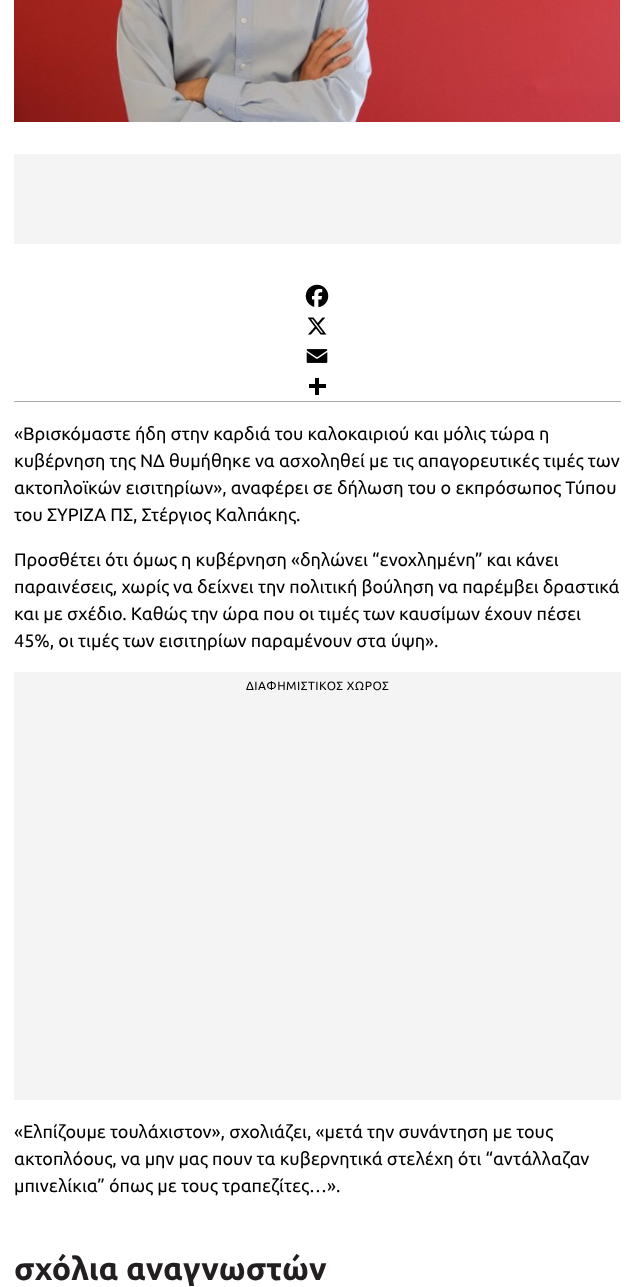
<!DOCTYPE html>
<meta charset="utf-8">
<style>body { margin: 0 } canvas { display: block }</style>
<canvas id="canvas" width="634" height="1287"></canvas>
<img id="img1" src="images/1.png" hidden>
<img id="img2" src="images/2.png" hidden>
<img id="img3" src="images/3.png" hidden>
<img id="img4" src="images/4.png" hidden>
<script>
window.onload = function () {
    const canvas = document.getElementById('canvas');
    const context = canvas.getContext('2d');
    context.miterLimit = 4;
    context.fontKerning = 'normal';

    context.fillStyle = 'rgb(255, 255, 255)';
    context.fillRect(0, 0, 634, 1287);
    context.drawImage(document.getElementById('img1'), 14, 0, 606, 122);
    context.fillStyle = 'rgb(244, 244, 244)';
    context.fillRect(14, 154, 607, 90);
    context.fillStyle = 'rgb(169, 169, 169)';
    context.fillRect(14, 401, 607, 1);
    context.drawImage(document.getElementById('img2'), 305, 284, 24, 24);
    context.drawImage(document.getElementById('img3'), 307, 317, 20, 18);
    context.drawImage(document.getElementById('img4'), 306, 349, 22, 14);
    context.fillStyle = 'rgb(0, 0, 0)';
    context.fillRect(315, 378, 4, 17);
    context.fillRect(309, 384, 17, 4);
    context.fillStyle = 'rgb(244, 244, 244)';
    context.fillRect(14, 672, 607, 428);
    context.font = '18px Ubuntu';
    context.fillStyle = 'rgb(0, 0, 0)';
    context.fillText('«Βρισκόμαστε ήδη στην καρδιά του καλοκαιριού και μόλις τώρα η', 14, 440);
    context.fillText('κυβέρνηση της ΝΔ θυμήθηκε να ασχοληθεί με τις απαγορευτικές τιμές των', 14, 467);
    context.fillText('ακτοπλοϊκών εισιτηρίων», αναφέρει σε δήλωση του ο εκπρόσωπος Τύπου', 14, 494);
    context.fillText('του ΣΥΡΙΖΑ ΠΣ, Στέργιος Καλπάκης.', 14, 521);
    context.fillText('Προσθέτει ότι όμως η κυβέρνηση «δηλώνει “ενοχλημένη” και κάνει', 14, 566);
    context.fillText('παραινέσεις, χωρίς να δείχνει την πολιτική βούληση να παρέμβει δραστικά', 14, 593);
    context.fillText('και με σχέδιο. Καθώς την ώρα που οι τιμές των καυσίμων έχουν πέσει', 14, 620);
    context.fillText('45%, οι τιμές των εισιτηρίων παραμένουν στα ύψη».', 14, 647);
    context.letterSpacing = '0.5px';
    context.font = '12px Ubuntu';
    context.fillText('ΔΙΑΦΗΜΙΣΤΙΚΟΣ ΧΩΡΟΣ', 246, 690);
    context.letterSpacing = '0px';
    context.font = '18px Ubuntu';
    context.fillText('«Ελπίζουμε τουλάχιστον», σχολιάζει, «μετά την συνάντηση με τους', 14, 1138);
    context.fillText('ακτοπλόους, να μην μας πουν τα κυβερνητικά στελέχη ότι “αντάλλαζαν', 14, 1165);
    context.fillText('μπινελίκια” όπως με τους τραπεζίτες…».', 14, 1192);
    context.font = 'bold 32px Ubuntu';
    context.fillStyle = 'rgb(35, 31, 32)';
    context.fillText('σχόλια αναγνωστών', 14, 1280);
};
</script>
